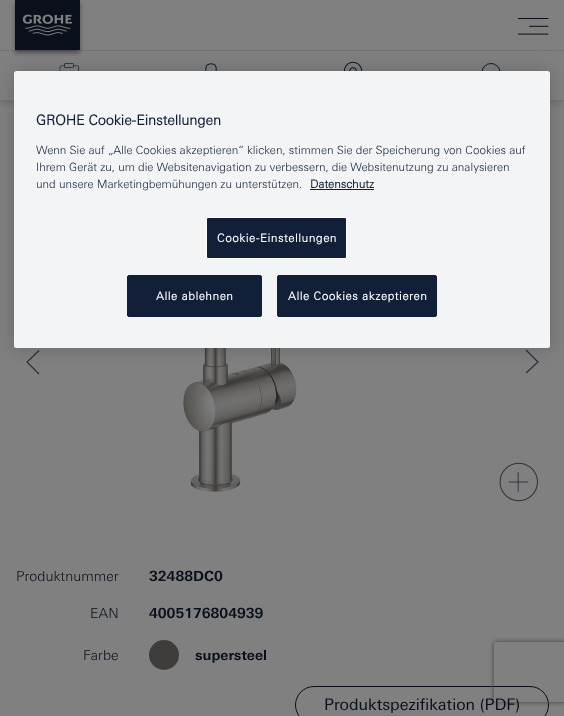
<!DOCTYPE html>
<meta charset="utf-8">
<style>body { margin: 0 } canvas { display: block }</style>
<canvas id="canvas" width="564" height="716"></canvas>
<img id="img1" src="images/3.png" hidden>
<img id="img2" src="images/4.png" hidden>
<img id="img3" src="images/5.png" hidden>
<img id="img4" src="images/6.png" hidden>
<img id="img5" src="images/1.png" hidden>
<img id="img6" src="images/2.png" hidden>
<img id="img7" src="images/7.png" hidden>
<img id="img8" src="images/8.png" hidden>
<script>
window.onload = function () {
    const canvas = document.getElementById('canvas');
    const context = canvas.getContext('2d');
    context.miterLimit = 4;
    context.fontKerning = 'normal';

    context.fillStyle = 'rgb(128, 128, 128)';
    context.fillRect(0, 0, 564, 716);
    context.fillStyle = 'rgba(0, 0, 0, 0.1)';
    context.filter = 'blur(2.5px)';
    context.beginPath();
    context.rect(0, 54, 564, 50);
    context.fill();
    context.filter = 'none';
    context.fillStyle = 'rgb(128, 128, 128)';
    context.fillRect(0, 52, 564, 48);
    context.fillStyle = 'rgb(115, 115, 115)';
    context.fillRect(0, 50, 564, 1);
    context.fillStyle = 'rgba(0, 0, 0, 0.4)';
    context.filter = 'blur(2px)';
    context.beginPath();
    context.rect(15, 3, 65, 50);
    context.fill();
    context.filter = 'none';
    context.fillStyle = 'rgb(9, 16, 28)';
    context.fillRect(15, 0, 65, 50);
    context.drawImage(document.getElementById('img1'), 59, 63, 21, 8);
    context.drawImage(document.getElementById('img2'), 205, 63, 12, 8);
    context.drawImage(document.getElementById('img3'), 343, 61, 20, 10);
    context.beginPath();
    context.arc(491, 72.5, 9, 0, 2 * Math.PI);
    context.strokeStyle = 'rgb(9, 16, 28)';
    context.lineWidth = 0.9;
    context.stroke();
    context.beginPath();
    context.moveTo(39, 374);
    context.lineTo(27, 362);
    context.lineTo(39, 350.5);
    context.strokeStyle = 'rgb(41, 49, 58)';
    context.lineWidth = 1.2;
    context.stroke();
    context.drawImage(document.getElementById('img4'), 183, 348, 198, 144);
    context.beginPath();
    context.moveTo(526, 350);
    context.lineTo(538, 362);
    context.lineTo(526, 373);
    context.stroke();
    context.fillStyle = 'rgba(0, 0, 0, 0.2)';
    context.filter = 'blur(9px)';
    context.beginPath();
    context.roundRect(14, 71, 536, 277, 2.5);
    context.fill();
    context.filter = 'none';
    context.fillStyle = 'rgb(242, 244, 246)';
    context.beginPath();
    context.roundRect(14, 71, 536, 277, 2.5);
    context.fill();
    context.fillStyle = 'rgb(17, 32, 56)';
    context.fillRect(310, 189, 64, 1);
    context.beginPath();
    context.roundRect(206.5, 217.5, 140, 41, 1.5);
    context.fill();
    context.strokeStyle = 'rgb(255, 255, 255)';
    context.lineWidth = 1;
    context.stroke();
    context.beginPath();
    context.roundRect(127.5, 275.5, 134, 41, 1.5);
    context.fill();
    context.strokeStyle = 'rgb(17, 32, 56)';
    context.stroke();
    context.beginPath();
    context.roundRect(277.5, 275.5, 159, 41, 1.5);
    context.fill();
    context.stroke();
    context.drawImage(document.getElementById('img5'), 22, 14, 50, 22);
    context.drawImage(document.getElementById('img6'), 518, 18, 31, 17);
    context.drawImage(document.getElementById('img7'), 499, 462, 39, 40);
    context.drawImage(document.getElementById('img8'), 149, 640, 30, 30);
    context.beginPath();
    context.roundRect(295.5, 686.5, 253, 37, 18.5);
    context.strokeStyle = 'rgb(9, 16, 28)';
    context.stroke();
    context.save();
    context.beginPath();
    context.moveTo(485, 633);
    context.lineTo(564, 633);
    context.lineTo(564, 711);
    context.lineTo(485, 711);
    context.closePath();
    context.moveTo(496, 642);
    context.lineTo(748, 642);
    context.bezierCurveTo(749, 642, 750, 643, 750, 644);
    context.lineTo(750, 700);
    context.bezierCurveTo(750, 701, 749, 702, 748, 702);
    context.lineTo(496, 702);
    context.bezierCurveTo(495, 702, 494, 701, 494, 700);
    context.lineTo(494, 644);
    context.bezierCurveTo(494, 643, 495, 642, 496, 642);
    context.closePath();
    context.clip('evenodd');
    context.fillStyle = 'rgb(64, 64, 64)';
    context.filter = 'blur(2.5px)';
    context.beginPath();
    context.roundRect(494, 642, 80, 60, 2);
    context.fill();
    context.filter = 'none';
    context.restore();
    context.font = 'bold 14px "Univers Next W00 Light"';
    context.fillText('GROHE Cookie-Einstellungen', 36, 125);
    context.font = '300 11.4px "Univers Next W00 Light"';
    context.fillText('Wenn Sie auf „Alle Cookies akzeptieren“ klicken, stimmen Sie der Speicherung von Cookies auf', 36, 154);
    context.fillText('Ihrem Gerät zu, um die Websitenavigation zu verbessern, die Websitenutzung zu analysieren', 36, 171);
    context.fillText('und unsere Marketingbemühungen zu unterstützen.', 36, 188);
    context.font = 'bold 11.4px "Univers Next W00 Light"';
    context.fillText('Datenschutz', 310, 188);
    context.letterSpacing = '0.6px';
    context.fillStyle = 'rgb(255, 255, 255)';
    context.fillText('Cookie-Einstellungen', 217, 242);
    context.fillText('Alle ablehnen', 156, 300);
    context.fillText('Alle Cookies akzeptieren', 288, 300);
    context.letterSpacing = '0px';
    context.font = '300 14px "Univers Next W00 Light"';
    context.fillStyle = 'rgb(9, 16, 28)';
    context.fillText('Produktnummer', 16, 581);
    context.font = 'bold 14px "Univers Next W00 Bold"';
    context.fillText('32488DC0', 149, 581);
    context.font = '300 14px "Univers Next W00 Light"';
    context.fillText('EAN', 90, 618);
    context.font = 'bold 14px "Univers Next W00 Bold"';
    context.fillText('4005176804939', 149, 618);
    context.font = '300 14px "Univers Next W00 Light"';
    context.fillText('Farbe', 83, 660);
    context.font = 'bold 14px "Univers Next W00 Bold"';
    context.fillText('supersteel', 195, 660);
    context.font = '16px "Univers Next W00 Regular"';
    context.fillText('Produktspezifikation (PDF)', 324, 710);
};
</script>
